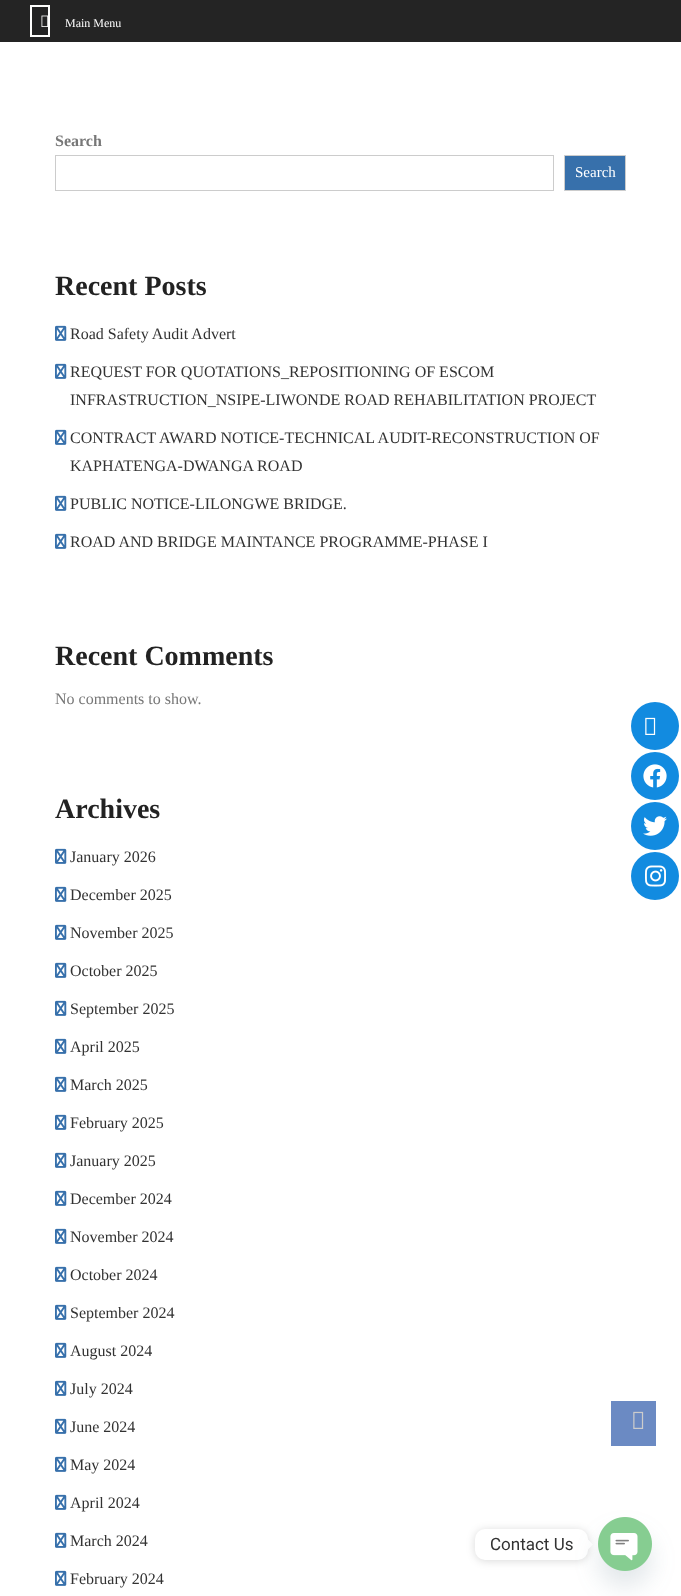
<!DOCTYPE html>
<meta charset="utf-8">
<style>body { margin: 0 } canvas { display: block }</style>
<canvas id="canvas" width="681" height="1596"></canvas>
<img id="img1" src="images/1.png" hidden>
<img id="img2" src="images/2.png" hidden>
<img id="img3" src="images/3.png" hidden>
<img id="img4" src="images/4.png" hidden>
<img id="img5" src="images/5.png" hidden>
<img id="img6" src="images/6.png" hidden>
<img id="img7" src="images/7.png" hidden>
<img id="img8" src="images/8.png" hidden>
<script>
window.onload = function () {
    const canvas = document.getElementById('canvas');
    const context = canvas.getContext('2d');
    context.miterLimit = 4;
    context.fontKerning = 'normal';

    context.fillStyle = 'rgb(255, 255, 255)';
    context.fillRect(0, 0, 681, 1596);
    context.fillStyle = 'rgb(36, 36, 36)';
    context.fillRect(0, 0, 681, 42);
    context.strokeStyle = 'rgb(255, 255, 254)';
    context.lineWidth = 2;
    context.strokeRect(31, 6, 18, 30);
    context.drawImage(document.getElementById('img1'), 41, 15, 7, 12);
    context.strokeStyle = 'rgb(204, 204, 204)';
    context.lineWidth = 1;
    context.strokeRect(55.5, 155.5, 498, 35);
    context.fillStyle = 'rgb(55, 112, 171)';
    context.beginPath();
    context.rect(564.5, 155.5, 61, 35);
    context.fill();
    context.stroke();
    context.drawImage(document.getElementById('img2'), 55, 325, 12, 16);
    context.drawImage(document.getElementById('img2'), 55, 363, 12, 16);
    context.drawImage(document.getElementById('img2'), 55, 429, 12, 16);
    context.drawImage(document.getElementById('img2'), 55, 495, 12, 16);
    context.drawImage(document.getElementById('img2'), 55, 533, 12, 16);
    context.drawImage(document.getElementById('img2'), 55, 848, 12, 16);
    context.drawImage(document.getElementById('img2'), 55, 886, 12, 16);
    context.drawImage(document.getElementById('img2'), 55, 924, 12, 16);
    context.drawImage(document.getElementById('img2'), 55, 962, 12, 16);
    context.drawImage(document.getElementById('img2'), 55, 1000, 12, 16);
    context.drawImage(document.getElementById('img2'), 55, 1038, 12, 16);
    context.drawImage(document.getElementById('img2'), 55, 1076, 12, 16);
    context.drawImage(document.getElementById('img2'), 55, 1114, 12, 16);
    context.drawImage(document.getElementById('img2'), 55, 1152, 12, 16);
    context.drawImage(document.getElementById('img2'), 55, 1190, 12, 16);
    context.drawImage(document.getElementById('img2'), 55, 1228, 12, 16);
    context.drawImage(document.getElementById('img2'), 55, 1266, 12, 16);
    context.drawImage(document.getElementById('img2'), 55, 1304, 12, 16);
    context.drawImage(document.getElementById('img2'), 55, 1342, 12, 16);
    context.drawImage(document.getElementById('img2'), 55, 1380, 12, 16);
    context.drawImage(document.getElementById('img2'), 55, 1418, 12, 16);
    context.drawImage(document.getElementById('img2'), 55, 1456, 12, 16);
    context.drawImage(document.getElementById('img2'), 55, 1494, 12, 16);
    context.drawImage(document.getElementById('img2'), 55, 1532, 12, 16);
    context.drawImage(document.getElementById('img2'), 55, 1570, 12, 16);
    context.fillStyle = 'rgb(18, 139, 224)';
    context.beginPath();
    context.arc(655, 726, 24, 0, 2 * Math.PI);
    context.fill();
    context.drawImage(document.getElementById('img3'), 645, 717, 11, 18);
    context.beginPath();
    context.arc(655, 776, 24, 0, 2 * Math.PI);
    context.fill();
    context.drawImage(document.getElementById('img4'), 643, 764, 24, 24);
    context.beginPath();
    context.arc(655, 826, 24, 0, 2 * Math.PI);
    context.fill();
    context.drawImage(document.getElementById('img5'), 643, 816, 24, 20);
    context.beginPath();
    context.arc(655, 876, 24, 0, 2 * Math.PI);
    context.fill();
    context.drawImage(document.getElementById('img6'), 645, 865, 21, 22);
    context.fillStyle = 'rgb(107, 138, 195)';
    context.fillRect(611, 1401, 45, 45);
    context.drawImage(document.getElementById('img7'), 633, 1411, 11, 18);
    context.fillStyle = 'rgba(0, 0, 0, 0.15)';
    context.filter = 'blur(4px)';
    context.beginPath();
    context.roundRect(475, 1530, 113, 31, 10);
    context.fill();
    context.filter = 'none';
    context.fillStyle = 'rgb(255, 255, 255)';
    context.beginPath();
    context.roundRect(475, 1529, 113, 31, 10);
    context.fill();
    context.beginPath();
    context.moveTo(588, 1549.5);
    context.lineTo(588, 1539.5);
    context.lineTo(593, 1544.5);
    context.closePath();
    context.fill();
    context.fillStyle = 'rgba(73, 104, 126, 0.16)';
    context.filter = 'blur(12px)';
    context.beginPath();
    context.roundRect(598, 1533, 54, 54, 27);
    context.fill();
    context.filter = 'none';
    context.drawImage(document.getElementById('img8'), 598, 1517, 54, 54);
    context.font = '12px Liberation Serif';
    context.fillStyle = 'rgb(255, 255, 255)';
    context.fillText('Main Menu', 65, 27);
    context.font = 'bold 16px Liberation Serif';
    context.fillStyle = 'rgb(119, 119, 119)';
    context.fillText('Search', 55, 146);
    context.font = '15px Liberation Serif';
    context.fillStyle = 'rgb(255, 255, 255)';
    context.fillText('Search', 575, 177);
    context.font = 'bold 28px Liberation Serif';
    context.fillStyle = 'rgb(34, 34, 34)';
    context.fillText('Recent Posts', 55, 295);
    context.font = '16px Liberation Serif';
    context.fillStyle = 'rgb(50, 50, 50)';
    context.fillText('Road Safety Audit Advert', 70, 339);
    context.fillText('REQUEST FOR QUOTATIONS_REPOSITIONING OF ESCOM', 70, 377);
    context.fillText('INFRASTRUCTION_NSIPE-LIWONDE ROAD REHABILITATION PROJECT', 70, 405);
    context.fillText('CONTRACT AWARD NOTICE-TECHNICAL AUDIT-RECONSTRUCTION OF', 70, 443);
    context.fillText('KAPHATENGA-DWANGA ROAD', 70, 471);
    context.fillText('PUBLIC NOTICE-LILONGWE BRIDGE.', 70, 509);
    context.fillText('ROAD AND BRIDGE MAINTANCE PROGRAMME-PHASE I', 70, 547);
    context.font = 'bold 28px Liberation Serif';
    context.fillStyle = 'rgb(34, 34, 34)';
    context.fillText('Recent Comments', 55, 665);
    context.font = '16px Liberation Serif';
    context.fillStyle = 'rgb(119, 119, 119)';
    context.fillText('No comments to show.', 55, 704);
    context.font = 'bold 28px Liberation Serif';
    context.fillStyle = 'rgb(34, 34, 34)';
    context.fillText('Archives', 55, 818);
    context.font = '16px Liberation Serif';
    context.fillStyle = 'rgb(50, 50, 50)';
    context.fillText('January 2026', 70, 862);
    context.fillText('December 2025', 70, 900);
    context.fillText('November 2025', 70, 938);
    context.fillText('October 2025', 70, 976);
    context.fillText('September 2025', 70, 1014);
    context.fillText('April 2025', 70, 1052);
    context.fillText('March 2025', 70, 1090);
    context.fillText('February 2025', 70, 1128);
    context.fillText('January 2025', 70, 1166);
    context.fillText('December 2024', 70, 1204);
    context.fillText('November 2024', 70, 1242);
    context.fillText('October 2024', 70, 1280);
    context.fillText('September 2024', 70, 1318);
    context.fillText('August 2024', 70, 1356);
    context.fillText('July 2024', 70, 1394);
    context.fillText('June 2024', 70, 1432);
    context.fillText('May 2024', 70, 1470);
    context.fillText('April 2024', 70, 1508);
    context.fillText('March 2024', 70, 1546);
    context.fillText('February 2024', 70, 1584);
    context.font = '17px Roboto';
    context.fillText('Contact Us', 490, 1550);
};
</script>
